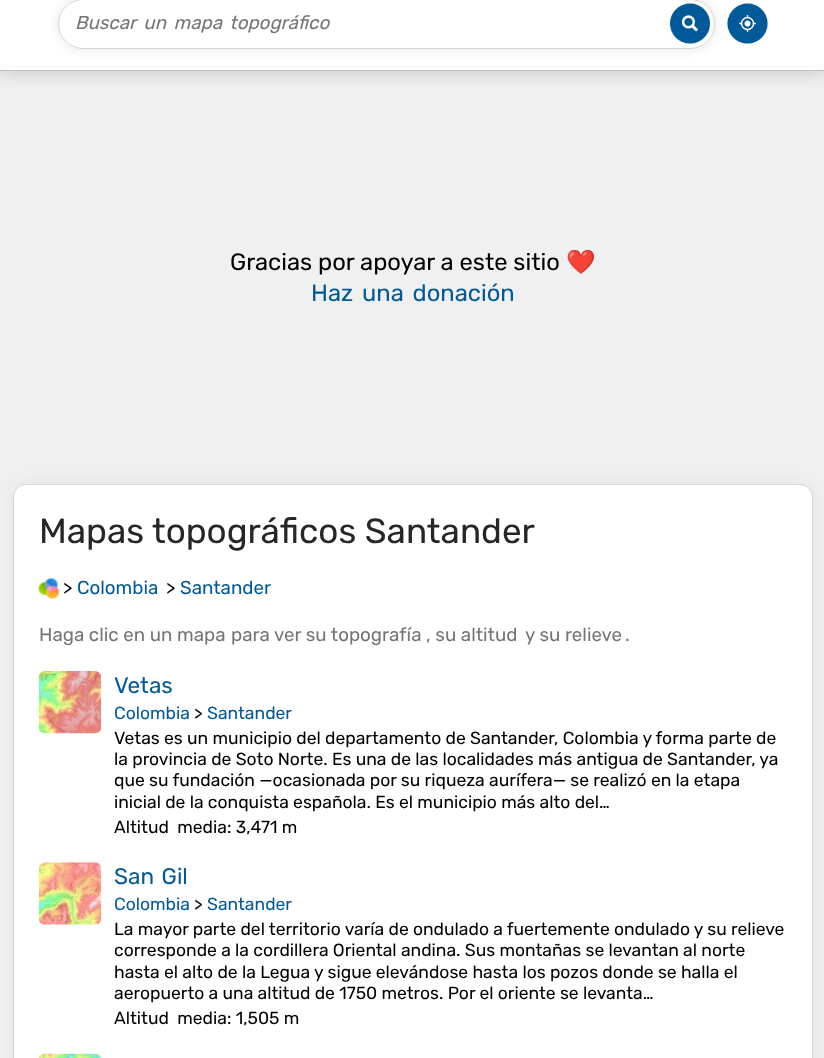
<!DOCTYPE html>
<meta charset="utf-8">
<style>body { margin: 0 } canvas { display: block }</style>
<canvas id="canvas" width="824" height="1058"></canvas>
<img id="img1" src="images/1.png" hidden>
<img id="img2" src="images/2.png" hidden>
<img id="img3" src="images/3.png" hidden>
<img id="img4" src="images/4.png" hidden>
<img id="img5" src="images/5.png" hidden>
<img id="img6" src="images/6.png" hidden>
<script>
window.onload = function () {
    const canvas = document.getElementById('canvas');
    const context = canvas.getContext('2d');
    context.miterLimit = 4;
    context.fontKerning = 'normal';

    context.fillStyle = 'rgb(240, 240, 240)';
    context.fillRect(0, 0, 824, 1058);
    context.fillStyle = 'rgba(0, 0, 0, 0.2)';
    context.filter = 'blur(9.5px)';
    context.beginPath();
    context.rect(0, -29, 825, 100);
    context.fill();
    context.filter = 'none';
    context.fillStyle = 'rgb(255, 255, 255)';
    context.fillRect(0, 0, 824, 70);
    context.fillStyle = 'rgb(191, 191, 191)';
    context.fillRect(0, 70, 824, 1);
    context.save();
    context.beginPath();
    context.moveTo(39, 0);
    context.lineTo(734, 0);
    context.lineTo(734, 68);
    context.lineTo(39, 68);
    context.closePath();
    context.moveTo(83, -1);
    context.lineTo(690, -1);
    context.bezierCurveTo(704, -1, 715, 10, 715, 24);
    context.bezierCurveTo(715, 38, 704, 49, 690, 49);
    context.lineTo(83, 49);
    context.bezierCurveTo(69, 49, 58, 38, 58, 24);
    context.bezierCurveTo(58, 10, 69, -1, 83, -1);
    context.closePath();
    context.clip('evenodd');
    context.fillStyle = 'rgba(0, 0, 0, 0.1)';
    context.filter = 'blur(6px)';
    context.beginPath();
    context.roundRect(58, -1, 657, 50, 25);
    context.fill();
    context.filter = 'none';
    context.restore();
    context.beginPath();
    context.roundRect(58.5, -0.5, 656, 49, 24.5);
    context.strokeStyle = 'rgb(214, 214, 214)';
    context.stroke();
    context.drawImage(document.getElementById('img1'), 670, 3, 40, 41);
    context.drawImage(document.getElementById('img2'), 727, 3, 41, 41);
    context.fillStyle = 'rgba(0, 0, 0, 0.05)';
    context.filter = 'blur(9.5px)';
    context.beginPath();
    context.roundRect(13, 484, 800, 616, 13);
    context.fill();
    context.filter = 'none';
    context.fillStyle = 'rgb(255, 255, 255)';
    context.beginPath();
    context.roundRect(13.5, 484.5, 799, 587, 12.5);
    context.fill();
    context.stroke();
    context.drawImage(document.getElementById('img3'), 38, 578, 21, 21);
    context.drawImage(document.getElementById('img4'), 38, 671, 64, 63);
    context.drawImage(document.getElementById('img5'), 38, 862, 64, 63);
    context.drawImage(document.getElementById('img6'), 39, 1053, 62, 5);
    context.wordSpacing = '3px';
    context.font = 'italic 18.75px Rubik';
    context.fillStyle = 'rgb(117, 117, 117)';
    context.fillText('Buscar un mapa topográfico', 75, 29);
    context.wordSpacing = '0px';
    context.font = '23.75px Rubik';
    context.fillStyle = 'rgb(0, 0, 0)';
    context.fillText('Gracias por apoyar a este sitio', 230, 270);
    context.font = '23.75px Noto Color Emoji';
    context.fillText('❤️', 566, 270);
    context.wordSpacing = '3px';
    context.font = '23.75px Rubik';
    context.fillStyle = 'rgb(0, 89, 153)';
    context.fillText('Haz una donación', 311, 301);
    context.wordSpacing = '0px';
    context.font = '35px Rubik';
    context.fillStyle = 'rgb(38, 38, 38)';
    context.fillText('Mapas topográficos Santander', 39, 543);
    context.font = '18.75px Rubik';
    context.fillStyle = 'rgb(0, 0, 0)';
    context.fillText('>', 63, 594);
    context.fillStyle = 'rgb(0, 89, 153)';
    context.fillText('Colombia', 77, 594);
    context.fillStyle = 'rgb(0, 0, 0)';
    context.fillText('>', 166, 594);
    context.fillStyle = 'rgb(0, 89, 153)';
    context.fillText('Santander', 180, 594);
    context.fillStyle = 'rgb(117, 117, 117)';
    context.fillText('Haga clic en un mapa', 39, 641);
    context.fillText('para ver su topografía , su altitud', 231, 641);
    context.fillText('y su relieve', 525, 641);
    context.fillText('.', 625, 641);
    context.font = '22.5px Rubik';
    context.fillStyle = 'rgb(0, 89, 153)';
    context.fillText('Vetas', 114, 693);
    context.font = '17.5px Rubik';
    context.fillText('Colombia', 114, 719);
    context.fillStyle = 'rgb(0, 0, 0)';
    context.fillText('>', 194, 719);
    context.fillStyle = 'rgb(0, 89, 153)';
    context.fillText('Santander', 207, 719);
    context.fillStyle = 'rgb(0, 0, 0)';
    context.fillText('Vetas es un municipio del departamento de Santander, Colombia y forma parte de', 114, 744);
    context.fillText('la provincia de Soto Norte. Es una de las localidades más antigua de Santander, ya', 114, 765);
    context.fillText('que su fundación —ocasionada por su riqueza aurífera— se realizó en la etapa', 114, 786);
    context.fillText('inicial de la conquista española. Es el municipio más alto del…', 114, 808);
    context.wordSpacing = '4px';
    context.fillText('Altitud media', 114, 833);
    context.wordSpacing = '0px';
    context.fillText(': 3,471 m', 227, 833);
    context.wordSpacing = '2px';
    context.font = '22.5px Rubik';
    context.fillStyle = 'rgb(0, 89, 153)';
    context.fillText('San Gil', 114, 884);
    context.wordSpacing = '0px';
    context.font = '17.5px Rubik';
    context.fillText('Colombia', 114, 910);
    context.fillStyle = 'rgb(0, 0, 0)';
    context.fillText('>', 194, 910);
    context.fillStyle = 'rgb(0, 89, 153)';
    context.fillText('Santander', 207, 910);
    context.fillStyle = 'rgb(0, 0, 0)';
    context.fillText('La mayor parte del territorio varía de ondulado a fuertemente ondulado y su relieve', 114, 935);
    context.fillText('corresponde a la cordillera Oriental andina. Sus montañas se levantan al norte', 114, 956);
    context.fillText('hasta el alto de la Legua y sigue elevándose hasta los pozos donde se halla el', 114, 978);
    context.fillText('aeropuerto a una altitud de 1750 metros. Por el oriente se levanta…', 114, 999);
    context.wordSpacing = '4px';
    context.fillText('Altitud media', 114, 1024);
    context.wordSpacing = '0px';
    context.fillText(': 1,505 m', 227, 1024);
};
</script>
